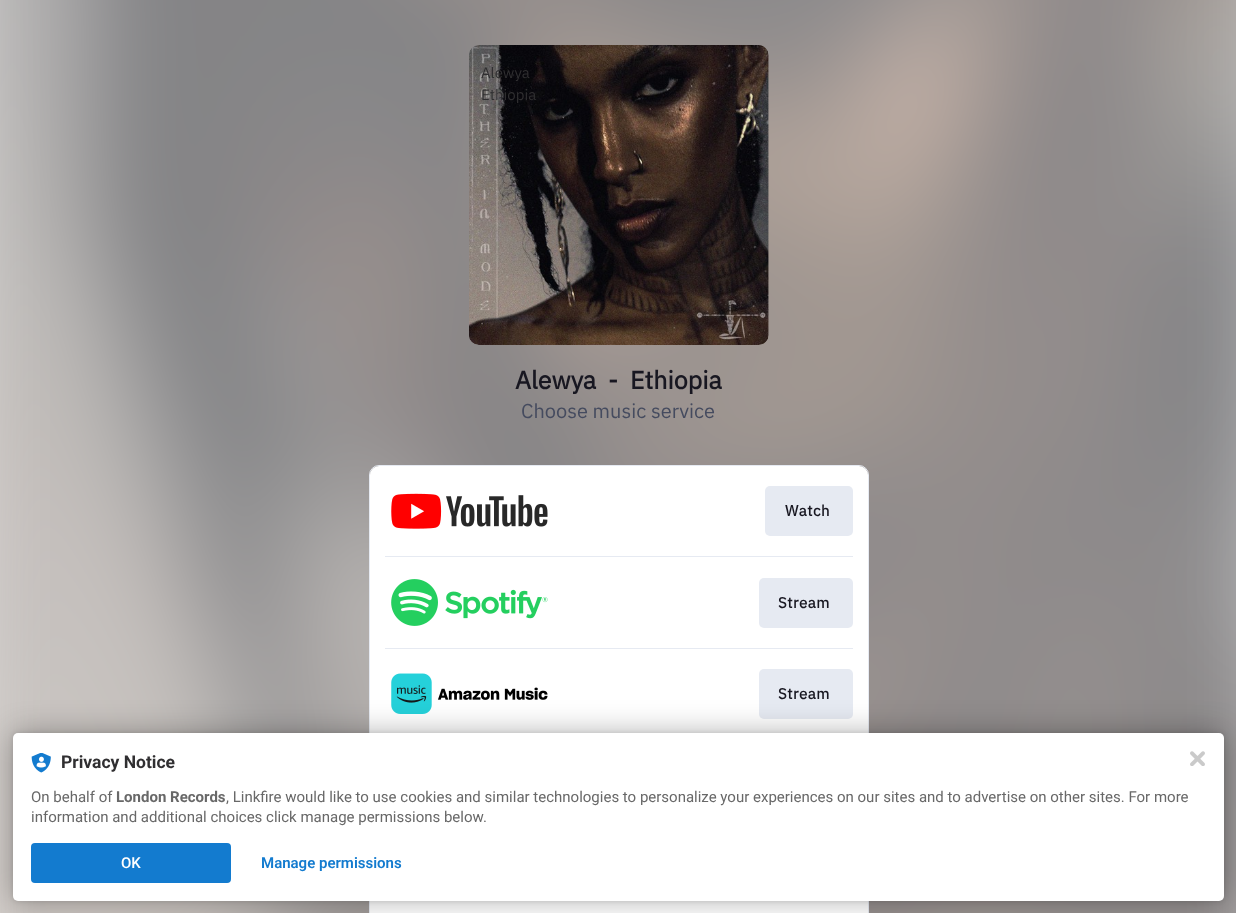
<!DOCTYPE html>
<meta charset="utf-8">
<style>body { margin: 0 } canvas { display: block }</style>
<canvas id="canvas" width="1236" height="913"></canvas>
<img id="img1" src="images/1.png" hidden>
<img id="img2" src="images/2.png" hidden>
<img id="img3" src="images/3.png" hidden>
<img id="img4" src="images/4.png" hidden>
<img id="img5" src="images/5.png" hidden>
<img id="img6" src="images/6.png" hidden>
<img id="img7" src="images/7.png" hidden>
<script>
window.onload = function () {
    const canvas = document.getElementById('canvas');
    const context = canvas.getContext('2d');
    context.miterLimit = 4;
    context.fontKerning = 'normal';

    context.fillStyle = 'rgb(255, 255, 255)';
    context.fillRect(0, 0, 1236, 913);
    context.drawImage(document.getElementById('img1'), 0, 0, 1236, 913);
    context.drawImage(document.getElementById('img2'), 469, 45, 300, 300);
    context.beginPath();
    context.roundRect(369.5, 465.5, 499, 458, 9.5);
    context.strokeStyle = 'rgb(230, 234, 242)';
    context.stroke();
    context.beginPath();
    context.roundRect(370, 466, 498, 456, 9);
    context.fill();
    context.drawImage(document.getElementById('img3'), 391, 493, 157, 36);
    context.fillStyle = 'rgb(230, 234, 242)';
    context.beginPath();
    context.roundRect(765, 486, 88, 50, 5);
    context.fill();
    context.fillRect(385, 556, 468, 1);
    context.drawImage(document.getElementById('img4'), 391, 579, 157, 47);
    context.beginPath();
    context.roundRect(759, 578, 94, 50, 5);
    context.fill();
    context.fillRect(385, 648, 468, 1);
    context.drawImage(document.getElementById('img5'), 391, 673, 157, 41);
    context.beginPath();
    context.roundRect(759, 669, 94, 50, 5);
    context.fill();
    context.fillStyle = 'rgba(0, 0, 0, 0.12)';
    context.filter = 'blur(2.5px)';
    context.beginPath();
    context.roundRect(13, 733, 1211, 168, 5);
    context.fill();
    context.filter = 'none';
    context.fillStyle = 'rgba(0, 0, 0, 0.3)';
    context.filter = 'blur(15px)';
    context.beginPath();
    context.roundRect(13, 733, 1211, 168, 5);
    context.fill();
    context.filter = 'none';
    context.fillStyle = 'rgb(255, 255, 255)';
    context.beginPath();
    context.roundRect(13, 733, 1211, 168, 5);
    context.fill();
    context.drawImage(document.getElementById('img6'), 31, 753, 20, 20);
    context.fillStyle = 'rgb(19, 123, 207)';
    context.beginPath();
    context.roundRect(31, 843, 200, 40, 4);
    context.fill();
    context.drawImage(document.getElementById('img7'), 1190, 751, 15, 15);
    context.font = '15px IBM Plex Sans';
    context.fillStyle = 'rgb(48, 47, 49)';
    context.fillText('Alewya', 481, 78);
    context.fillText('Ethiopia', 481, 100);
    context.wordSpacing = '6px';
    context.font = 'bold 25px IBM Plex Sans';
    context.fillStyle = 'rgb(24, 23, 33)';
    context.fillText('Alewya - Ethiopia', 515, 389);
    context.wordSpacing = '0px';
    context.font = '20px IBM Plex Sans';
    context.fillStyle = 'rgb(69, 75, 95)';
    context.fillText('Choose music service', 521, 418);
    context.letterSpacing = '0.5px';
    context.font = 'bold 15px IBM Plex Sans';
    context.fillStyle = 'rgb(24, 23, 33)';
    context.fillText('Watch', 785, 516);
    context.fillText('Stream', 778, 608);
    context.fillText('Stream', 778, 699);
    context.letterSpacing = '0px';
    context.font = 'bold 17.5px Roboto';
    context.fillStyle = 'rgb(48, 47, 49)';
    context.fillText('Privacy Notice', 61, 768);
    context.font = '15px Roboto';
    context.fillStyle = 'rgb(104, 104, 104)';
    context.fillText('On behalf of', 31, 802);
    context.font = 'bold 15px Roboto';
    context.fillText('London Records', 116, 802);
    context.font = '15px Roboto';
    context.fillText(', Linkfire would like to use cookies and similar technologies to personalize your experiences on our sites and to advertise on other sites. For more', 226, 802);
    context.fillText('information and additional choices click manage permissions below.', 31, 822);
    context.font = '500 15px Roboto';
    context.fillStyle = 'rgb(255, 255, 255)';
    context.fillText('OK', 121, 868);
    context.font = '600 15px Roboto';
    context.fillStyle = 'rgb(19, 123, 207)';
    context.fillText('Manage permissions', 261, 868);
};
</script>
